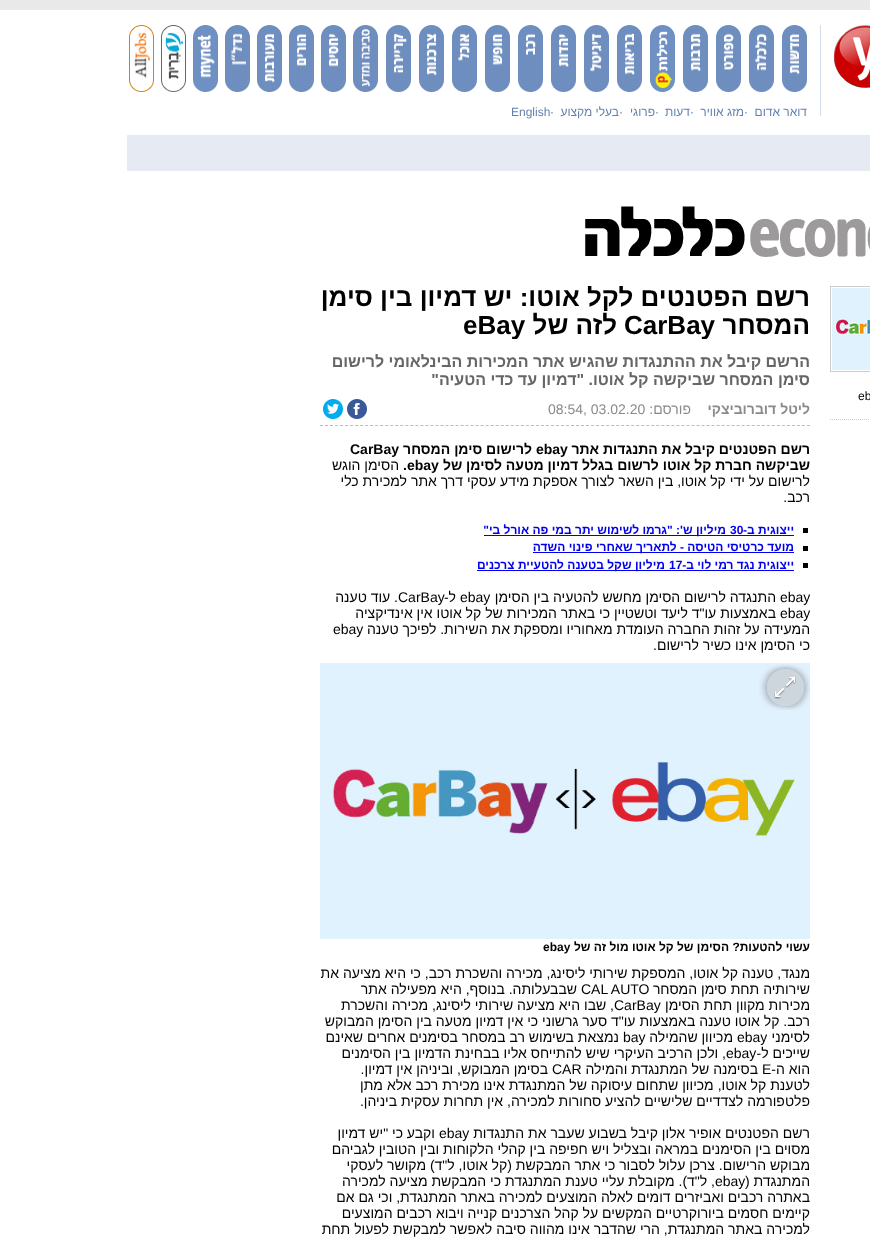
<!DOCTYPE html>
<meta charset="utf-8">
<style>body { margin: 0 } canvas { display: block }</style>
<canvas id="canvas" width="870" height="1244"></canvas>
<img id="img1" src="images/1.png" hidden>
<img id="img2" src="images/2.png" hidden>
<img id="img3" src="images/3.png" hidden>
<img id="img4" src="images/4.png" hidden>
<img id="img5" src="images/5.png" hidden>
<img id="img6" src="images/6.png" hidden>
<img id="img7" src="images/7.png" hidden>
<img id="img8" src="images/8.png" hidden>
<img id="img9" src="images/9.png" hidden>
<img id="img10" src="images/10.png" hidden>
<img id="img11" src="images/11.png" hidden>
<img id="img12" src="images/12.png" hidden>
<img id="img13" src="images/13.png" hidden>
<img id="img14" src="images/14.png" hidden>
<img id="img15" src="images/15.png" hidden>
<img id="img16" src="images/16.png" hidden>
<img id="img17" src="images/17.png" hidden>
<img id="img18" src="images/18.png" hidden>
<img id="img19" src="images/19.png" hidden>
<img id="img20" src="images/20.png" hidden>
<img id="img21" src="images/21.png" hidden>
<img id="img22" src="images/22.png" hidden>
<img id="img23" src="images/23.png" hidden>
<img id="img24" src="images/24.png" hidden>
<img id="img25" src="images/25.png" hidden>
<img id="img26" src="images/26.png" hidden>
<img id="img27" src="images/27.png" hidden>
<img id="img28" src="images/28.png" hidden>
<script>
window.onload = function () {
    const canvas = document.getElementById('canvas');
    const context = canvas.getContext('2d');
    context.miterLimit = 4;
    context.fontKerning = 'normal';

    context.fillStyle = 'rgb(255, 255, 255)';
    context.fillRect(0, 0, 870, 1244);
    context.fillStyle = 'rgb(233, 233, 233)';
    context.fillRect(0, 0, 870, 10);
    context.drawImage(document.getElementById('img1'), 834, 25, 36, 63);
    context.fillStyle = 'rgb(211, 221, 237)';
    context.fillRect(820, 25, 1, 91);
    context.drawImage(document.getElementById('img2'), 782, 25, 25, 67);
    context.drawImage(document.getElementById('img3'), 749, 25, 25, 67);
    context.drawImage(document.getElementById('img4'), 716, 25, 25, 67);
    context.drawImage(document.getElementById('img5'), 683, 25, 25, 67);
    context.drawImage(document.getElementById('img6'), 650, 25, 25, 67);
    context.drawImage(document.getElementById('img7'), 617, 25, 25, 67);
    context.drawImage(document.getElementById('img8'), 584, 25, 25, 67);
    context.drawImage(document.getElementById('img9'), 551, 25, 25, 67);
    context.drawImage(document.getElementById('img10'), 518, 25, 25, 67);
    context.drawImage(document.getElementById('img11'), 485, 25, 25, 67);
    context.drawImage(document.getElementById('img12'), 452, 25, 25, 67);
    context.drawImage(document.getElementById('img13'), 419, 25, 25, 67);
    context.drawImage(document.getElementById('img14'), 386, 25, 25, 67);
    context.drawImage(document.getElementById('img15'), 353, 25, 25, 67);
    context.drawImage(document.getElementById('img16'), 321, 25, 25, 67);
    context.drawImage(document.getElementById('img17'), 289, 25, 25, 67);
    context.drawImage(document.getElementById('img18'), 257, 25, 25, 67);
    context.drawImage(document.getElementById('img19'), 225, 25, 25, 67);
    context.drawImage(document.getElementById('img20'), 193, 25, 25, 67);
    context.drawImage(document.getElementById('img21'), 161, 25, 25, 67);
    context.drawImage(document.getElementById('img22'), 129, 25, 25, 67);
    context.fillStyle = 'rgb(230, 234, 243)';
    context.fillRect(127, 135, 743, 36);
    context.drawImage(document.getElementById('img23'), 585, 206, 285, 51);
    context.strokeStyle = 'rgb(204, 206, 205)';
    context.strokeRect(830.5, 286.5, 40, 85);
    context.drawImage(document.getElementById('img24'), 832, 288, 38, 82);
    context.beginPath();
    context.moveTo(830, 419.5);
    context.lineTo(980, 419.5);
    context.setLineDash([1, 1]);
    context.stroke();
    context.drawImage(document.getElementById('img25'), 347, 399, 20, 20);
    context.drawImage(document.getElementById('img26'), 323, 399, 20, 20);
    context.beginPath();
    context.moveTo(320, 425.5);
    context.lineTo(810, 425.5);
    context.strokeStyle = 'rgb(188, 188, 188)';
    context.setLineDash([3, 2.02]);
    context.stroke();
    context.fillStyle = 'rgb(0, 0, 0)';
    context.fillRect(803, 528, 5, 5);
    context.fillStyle = 'rgb(0, 0, 238)';
    context.fillRect(484, 535, 310, 1);
    context.fillStyle = 'rgb(0, 0, 0)';
    context.fillRect(803, 546, 5, 5);
    context.fillStyle = 'rgb(0, 0, 238)';
    context.fillRect(533, 552, 261, 1);
    context.fillStyle = 'rgb(0, 0, 0)';
    context.fillRect(803, 563, 5, 5);
    context.fillStyle = 'rgb(0, 0, 238)';
    context.fillRect(477, 570, 317, 1);
    context.drawImage(document.getElementById('img27'), 320, 663, 490, 276);
    context.drawImage(document.getElementById('img28'), 759, 664, 51, 46);
    context.direction = 'rtl';
    context.font = '12px Liberation Sans';
    context.fillStyle = 'rgb(98, 129, 175)';
    context.fillText('דואר אדום', 807, 116);
    context.direction = 'ltr';
    context.fillStyle = 'rgb(104, 130, 167)';
    context.fillText('·', 744, 116);
    context.direction = 'rtl';
    context.fillStyle = 'rgb(98, 129, 175)';
    context.fillText('מזג אוויר', 744, 116);
    context.direction = 'ltr';
    context.fillStyle = 'rgb(104, 130, 167)';
    context.fillText('·', 690, 116);
    context.direction = 'rtl';
    context.fillStyle = 'rgb(98, 129, 175)';
    context.fillText('דעות', 690, 116);
    context.direction = 'ltr';
    context.fillStyle = 'rgb(104, 130, 167)';
    context.fillText('·', 655, 116);
    context.direction = 'rtl';
    context.fillStyle = 'rgb(98, 129, 175)';
    context.fillText('פרוגי', 655, 116);
    context.direction = 'ltr';
    context.fillStyle = 'rgb(104, 130, 167)';
    context.fillText('·', 619, 116);
    context.direction = 'rtl';
    context.fillStyle = 'rgb(98, 129, 175)';
    context.fillText('בעלי מקצוע', 619, 116);
    context.direction = 'ltr';
    context.fillStyle = 'rgb(104, 130, 167)';
    context.fillText('·', 550, 116);
    context.fillStyle = 'rgb(98, 129, 175)';
    context.fillText('English', 511, 116);
    context.fillStyle = 'rgb(0, 0, 0)';
    context.fillText('eb', 858, 400);
    context.save();
    context.beginPath();
    context.rect(320, 286, 490, 53);
    context.clip();
    context.direction = 'rtl';
    context.font = 'bold 26px Liberation Sans';
    context.fillText('רשם הפטנטים לקל אוטו: יש דמיון בין סימן', 810, 306);
    context.restore();
    context.direction = 'rtl';
    context.font = 'bold 26px Liberation Sans';
    context.fillText('המסחר', 810, 334);
    context.save();
    context.beginPath();
    context.rect(320, 286, 490, 53);
    context.clip();
    context.direction = 'ltr';
    context.fillText('CarBay', 624, 334);
    context.restore();
    context.fillText('לזה של', 617, 334);
    context.save();
    context.beginPath();
    context.rect(320, 286, 490, 53);
    context.clip();
    context.direction = 'ltr';
    context.fillText('eBay', 463, 334);
    context.restore();
    context.font = 'bold 16px Liberation Sans';
    context.fillStyle = 'rgb(102, 102, 102)';
    context.fillText('הרשם קיבל את ההתנגדות שהגיש אתר המכירות הבינלאומי לרישום', 810, 367);
    context.fillText('סימן המסחר שביקשה קל אוטו. "דמיון עד כדי הטעיה"', 810, 385);
    context.font = 'bold 14px Liberation Sans';
    context.fillStyle = 'rgb(138, 138, 138)';
    context.fillText('ליטל דוברוביצקי', 810, 414);
    context.font = '14px Liberation Sans';
    context.fillText('פורסם:', 691, 414);
    context.direction = 'ltr';
    context.fillText('08:54, 03.02.20', 548, 414);
    context.direction = 'rtl';
    context.font = 'bold 14px Liberation Sans';
    context.fillStyle = 'rgb(0, 0, 0)';
    context.fillText('רשם הפטנטים קיבל את התנגדות אתר', 810, 454);
    context.direction = 'ltr';
    context.fillText('ebay', 536, 454);
    context.direction = 'rtl';
    context.fillText('לרישום סימן המסחר', 532, 454);
    context.direction = 'ltr';
    context.fillText('CarBay', 350, 454);
    context.direction = 'rtl';
    context.fillText('שביקשה חברת קל אוטו לרשום בגלל דמיון מטעה לסימן של', 810, 470);
    context.direction = 'ltr';
    context.fillText('.ebay', 403, 470);
    context.direction = 'rtl';
    context.font = '14px Liberation Sans';
    context.fillText('הסימן הוגש', 399, 470);
    context.fillText('לרישום על ידי קל אוטו, בין השאר לצורך אספקת מידע עסקי דרך אתר למכירת כלי', 810, 486);
    context.fillText('רכב.', 810, 502);
    context.font = 'bold 12px Liberation Sans';
    context.fillStyle = 'rgb(0, 0, 238)';
    context.fillText('ייצוגית ב-', 794, 534);
    context.direction = 'ltr';
    context.fillText('30', 730, 534);
    context.direction = 'rtl';
    context.fillText('מיליון ש\': "גרמו לשימוש יתר במי פה אורל בי"', 726, 534);
    context.fillText('מועד כרטיסי הטיסה - לתאריך שאחרי פינוי השדה', 794, 551);
    context.fillText('ייצוגית נגד רמי לוי ב-', 794, 569);
    context.direction = 'ltr';
    context.fillText('17', 669, 569);
    context.direction = 'rtl';
    context.fillText('מיליון שקל בטענה להטעיית צרכנים', 665, 569);
    context.direction = 'ltr';
    context.font = '14px Liberation Sans';
    context.fillStyle = 'rgb(0, 0, 0)';
    context.fillText('ebay', 780, 602);
    context.direction = 'rtl';
    context.fillText('התנגדה לרישום הסימן מחשש להטעיה בין הסימן', 776, 602);
    context.direction = 'ltr';
    context.fillText('ebay', 460, 602);
    context.direction = 'rtl';
    context.fillText('ל-', 456, 602);
    context.direction = 'ltr';
    context.fillText('CarBay', 398, 602);
    context.direction = 'rtl';
    context.fillText('. עוד טענה', 398, 602);
    context.direction = 'ltr';
    context.fillText('ebay', 780, 618);
    context.direction = 'rtl';
    context.fillText('באמצעות עו"ד ליעד וטשטיין כי באתר המכירות של קל אוטו אין אינדיקציה', 776, 618);
    context.fillText('המעידה על זהות החברה העומדת מאחוריו ומספקת את השירות. לפיכך טענה', 810, 634);
    context.direction = 'ltr';
    context.fillText('ebay', 333, 634);
    context.direction = 'rtl';
    context.fillText('כי הסימן אינו כשיר לרישום.', 810, 650);
    context.font = 'bold 12px Liberation Sans';
    context.fillText('עשוי להטעות? הסימן של קל אוטו מול זה של', 810, 951);
    context.direction = 'ltr';
    context.fillText('ebay', 543, 951);
    context.direction = 'rtl';
    context.font = '14px Liberation Sans';
    context.fillText('מנגד, טענה קל אוטו, המספקת שירותי ליסינג, מכירה והשכרת רכב, כי היא מציעה את', 810, 978);
    context.fillText('שירותיה תחת סימן המסחר', 810, 994);
    context.direction = 'ltr';
    context.fillText('CAL AUTO', 581, 994);
    context.direction = 'rtl';
    context.fillText('שבבעלותה. בנוסף, היא מפעילה אתר', 577, 994);
    context.fillText('מכירות מקוון תחת הסימן', 810, 1010);
    context.direction = 'ltr';
    context.fillText('CarBay', 614, 1010);
    context.direction = 'rtl';
    context.fillText(', שבו היא מציעה שירותי ליסינג, מכירה והשכרת', 614, 1010);
    context.fillText('רכב. קל אוטו טענה באמצעות עו"ד סער גרשוני כי אין דמיון מטעה בין הסימן המבוקש', 810, 1026);
    context.fillText('לסימני', 810, 1042);
    context.direction = 'ltr';
    context.fillText('ebay', 737, 1042);
    context.direction = 'rtl';
    context.fillText('מכיוון שהמילה', 733, 1042);
    context.direction = 'ltr';
    context.fillText('bay', 623, 1042);
    context.direction = 'rtl';
    context.fillText('נמצאת בשימוש רב במסחר בסימנים אחרים שאינם', 619, 1042);
    context.fillText('שייכים ל-', 810, 1058);
    context.direction = 'ltr';
    context.fillText('ebay', 726, 1058);
    context.direction = 'rtl';
    context.fillText(', ולכן הרכיב העיקרי שיש להתייחס אליו בבחינת הדמיון בין הסימנים', 726, 1058);
    context.fillText('הוא ה-', 810, 1074);
    context.direction = 'ltr';
    context.fillText('E', 762, 1074);
    context.direction = 'rtl';
    context.fillText('בסימנה של המתנגדת והמילה', 758, 1074);
    context.direction = 'ltr';
    context.fillText('CAR', 552, 1074);
    context.direction = 'rtl';
    context.fillText('בסימן המבוקש, וביניהן אין דמיון.', 548, 1074);
    context.fillText('לטענת קל אוטו, מכיוון שתחום עיסוקה של המתנגדת אינו מכירת רכב אלא מתן', 810, 1090);
    context.fillText('פלטפורמה לצדדיים שלישיים להציע סחורות למכירה, אין תחרות עסקית ביניהן.', 810, 1106);
    context.fillText('רשם הפטנטים אופיר אלון קיבל בשבוע שעבר את התנגדות', 810, 1138);
    context.direction = 'ltr';
    context.fillText('ebay', 439, 1138);
    context.direction = 'rtl';
    context.fillText('וקבע כי "יש דמיון', 435, 1138);
    context.fillText('מסוים בין הסימנים במראה ובצליל ויש חפיפה בין קהלי הלקוחות ובין הטובין לגביהם', 810, 1154);
    context.fillText('מבוקש הרישום. צרכן עלול לסבור כי אתר המבקשת (קל אוטו, ל"ד) מקושר לעסקי', 810, 1170);
    context.fillText('המתנגדת (', 810, 1186);
    context.direction = 'ltr';
    context.fillText('ebay', 715, 1186);
    context.direction = 'rtl';
    context.fillText(', ל"ד). מקובלת עליי טענת המתנגדת כי המבקשת מציעה למכירה', 715, 1186);
    context.fillText('באתרה רכבים ואביזרים דומים לאלה המוצעים למכירה באתר המתנגדת, וכי גם אם', 810, 1202);
    context.fillText('קיימים חסמים ביורוקרטיים המקשים על קהל הצרכנים קנייה ויבוא רכבים המוצעים', 810, 1218);
    context.fillText('למכירה באתר המתנגדת, הרי שהדבר אינו מהווה סיבה לאפשר למבקשת לפעול תחת', 810, 1234);
};
</script>
